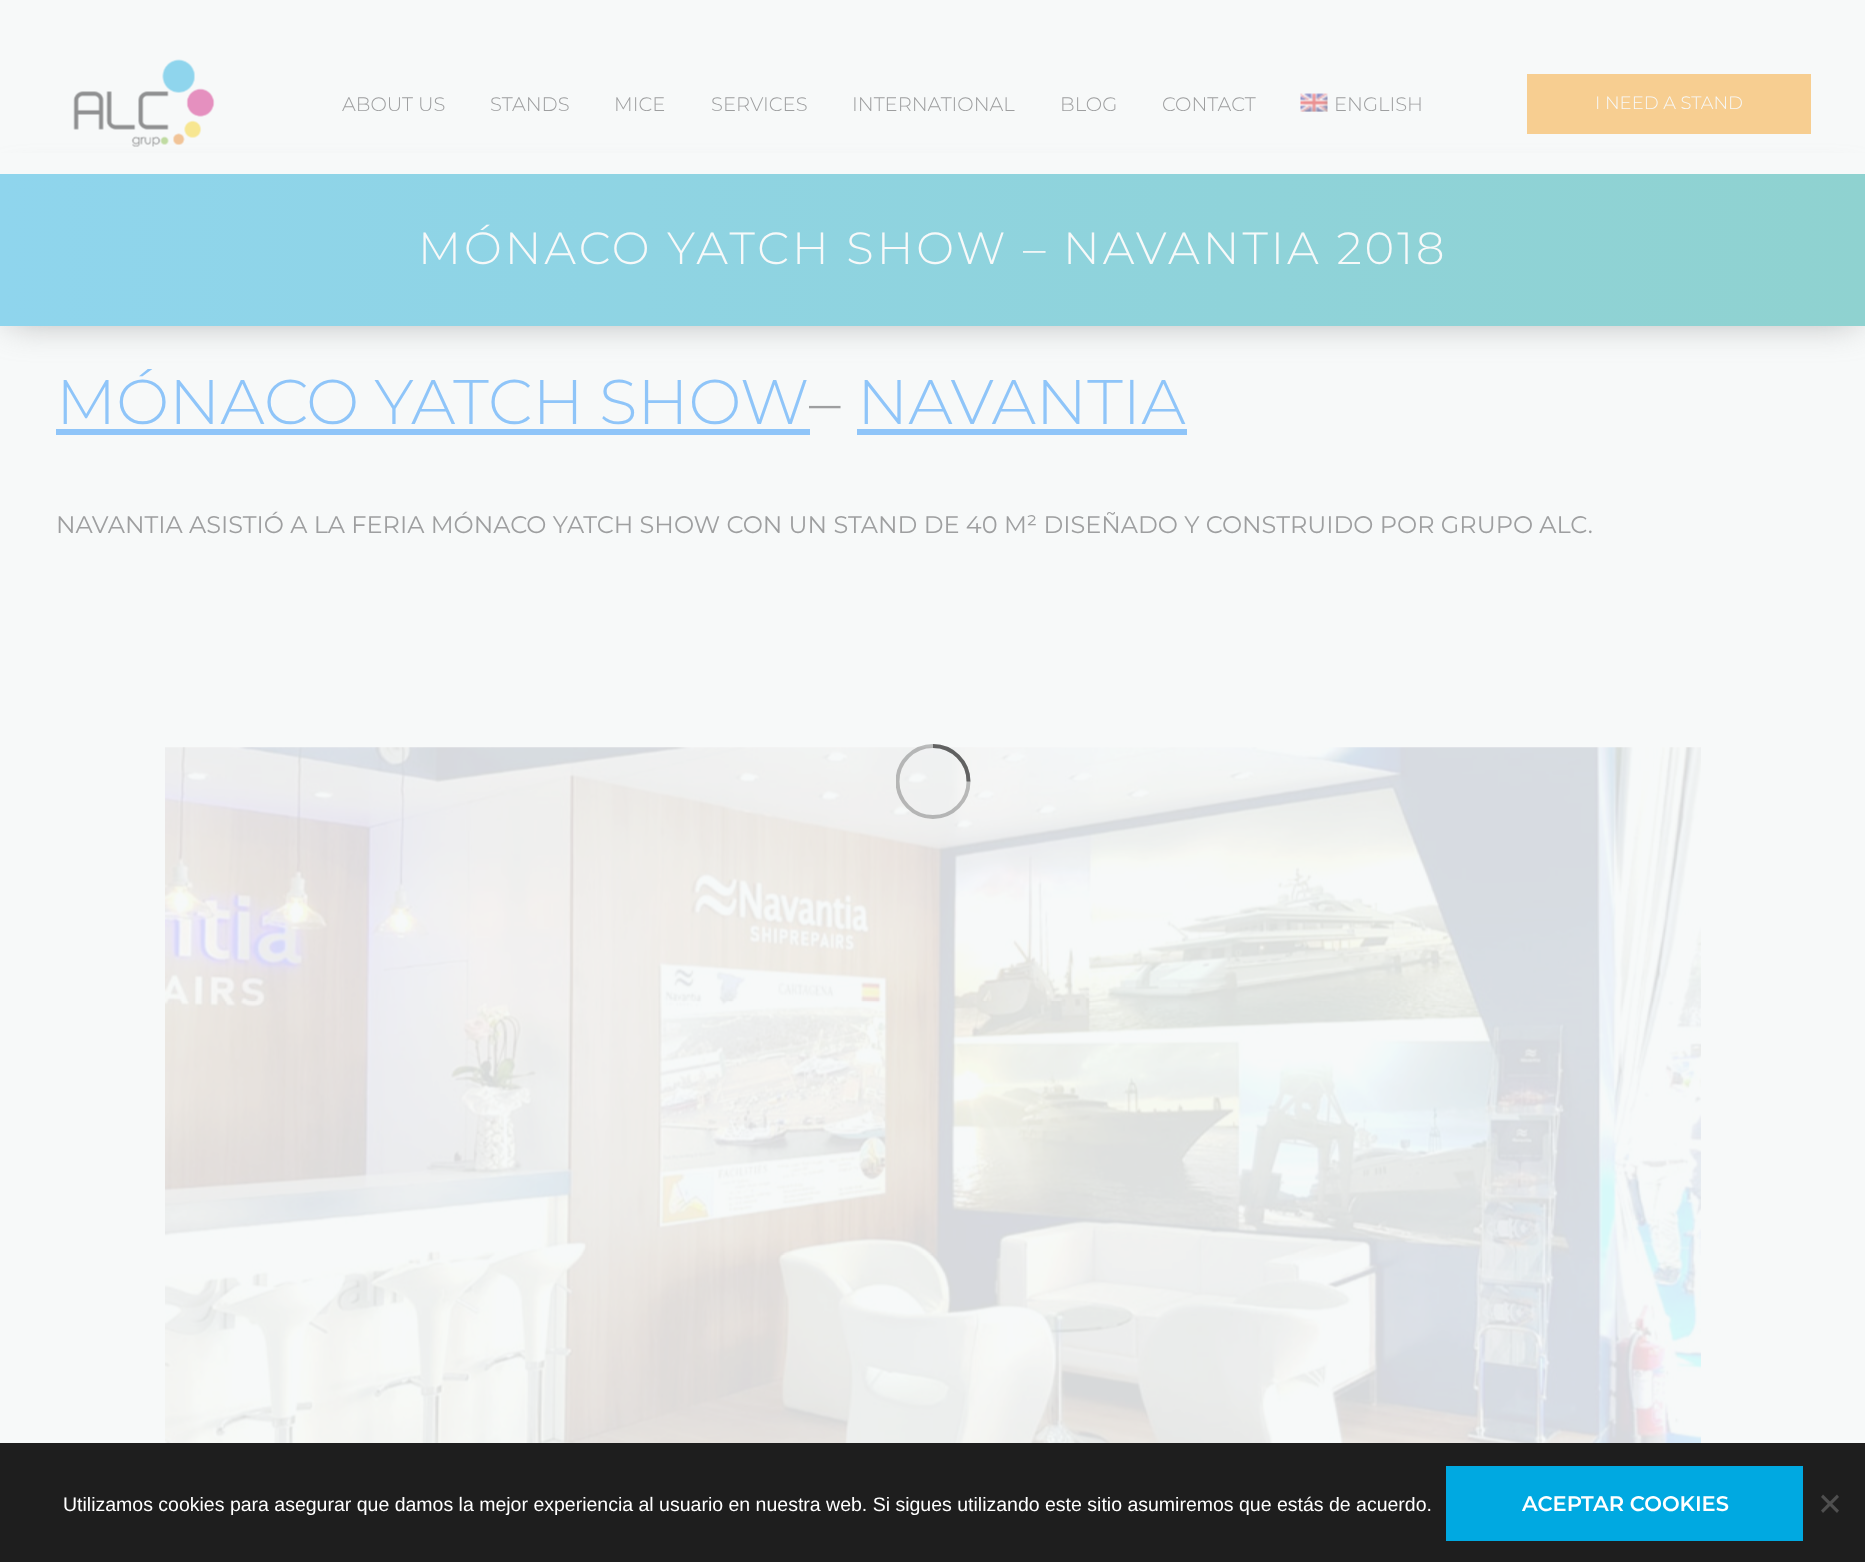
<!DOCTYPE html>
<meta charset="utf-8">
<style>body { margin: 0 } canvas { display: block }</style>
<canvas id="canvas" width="1865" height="1562"></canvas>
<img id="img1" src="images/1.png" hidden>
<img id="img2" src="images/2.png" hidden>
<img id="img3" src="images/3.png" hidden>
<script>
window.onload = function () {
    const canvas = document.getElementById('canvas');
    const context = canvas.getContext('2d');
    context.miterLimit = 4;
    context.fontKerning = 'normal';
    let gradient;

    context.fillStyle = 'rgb(247, 249, 249)';
    context.fillRect(0, 0, 1865, 1562);
    context.fillStyle = 'rgba(143, 144, 145, 0.75)';
    context.filter = 'blur(18px)';
    context.beginPath();
    context.rect(9, 186, 1848, 134);
    context.fill();
    context.filter = 'none';
    context.fillStyle = 'rgb(247, 249, 249)';
    context.fillRect(0, 153, 1865, 21);
    context.drawImage(document.getElementById('img1'), 73, 59, 142, 88);
    context.drawImage(document.getElementById('img2'), 1300, 93, 28, 19);
    context.fillStyle = 'rgb(247, 206, 145)';
    context.fillRect(1527, 74, 284, 60);
    gradient = context.createLinearGradient(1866, 250, 0, 250);
    gradient.addColorStop(0, 'rgb(143, 210, 208)');
    gradient.addColorStop(1, 'rgb(143, 213, 237)');
    context.fillStyle = gradient;
    context.fillRect(0, 174, 1865, 152);
    context.fillStyle = 'rgb(143, 197, 249)';
    context.fillRect(56, 429, 754, 6);
    context.fillRect(857, 429, 330, 6);
    context.drawImage(document.getElementById('img3'), 165, 747, 1536, 696);
    context.save();
    context.beginPath();
    context.rect(896, 744, 75, 75);
    context.clip();
    context.beginPath();
    context.arc(933, 781.5, 35.5, 0, 2 * Math.PI);
    context.strokeStyle = 'rgba(37, 37, 37, 0.29)';
    context.lineWidth = 3.9;
    context.stroke();
    context.restore();
    context.beginPath();
    context.moveTo(968.5, 781.5);
    context.bezierCurveTo(968.5, 762, 952.5, 746, 933, 746);
    context.strokeStyle = 'rgba(37, 37, 37, 0.59)';
    context.lineWidth = 3.9;
    context.stroke();
    context.fillStyle = 'rgb(30, 30, 30)';
    context.fillRect(0, 1443, 1865, 119);
    context.fillStyle = 'rgb(0, 169, 225)';
    context.fillRect(1446, 1466, 357, 75);
    context.fillStyle = 'rgb(79, 79, 79)';
    context.beginPath();
    context.moveTo(1837, 1494.5);
    context.lineTo(1839, 1497);
    context.lineTo(1823, 1513);
    context.lineTo(1821, 1510.5);
    context.closePath();
    context.fill();
    context.beginPath();
    context.moveTo(1821, 1497);
    context.lineTo(1823, 1494.5);
    context.lineTo(1839, 1510.5);
    context.lineTo(1837, 1513);
    context.closePath();
    context.fill();
    context.font = '300 19.5px Montserrat';
    context.fillStyle = 'rgb(158, 159, 160)';
    context.fillText('ABOUT US', 342, 111);
    context.fillText('STANDS', 490, 111);
    context.fillText('MICE', 614, 111);
    context.fillText('SERVICES', 711, 111);
    context.fillText('INTERNATIONAL', 852, 111);
    context.fillText('BLOG', 1060, 111);
    context.fillText('CONTACT', 1162, 111);
    context.fillText('ENGLISH', 1334, 111);
    context.font = '300 18px Montserrat';
    context.fillStyle = 'rgb(247, 249, 249)';
    context.fillText('I NEED A STAND', 1595, 109);
    context.letterSpacing = '3px';
    context.font = '300 45px Montserrat';
    context.fillText('MÓNACO YATCH SHOW – NAVANTIA 2018', 418, 264);
    context.letterSpacing = '0px';
    context.wordSpacing = '-1px';
    context.font = '300 63px Montserrat';
    context.fillStyle = 'rgb(143, 197, 249)';
    context.fillText('MÓNACO YATCH SHOW', 56, 424);
    context.wordSpacing = '0px';
    context.fillStyle = 'rgb(158, 159, 160)';
    context.fillText('–', 809, 424);
    context.fillStyle = 'rgb(143, 197, 249)';
    context.fillText('NAVANTIA', 857, 424);
    context.font = '24px Montserrat';
    context.fillStyle = 'rgb(158, 159, 160)';
    context.fillText('NAVANTIA ASISTIÓ A LA FERIA MÓNACO YATCH SHOW CON UN STAND DE 40 M² DISEÑADO Y CONSTRUIDO POR GRUPO ALC.', 56, 533);
    context.font = '19.5px Liberation Sans';
    context.fillStyle = 'rgb(255, 255, 255)';
    context.fillText('Utilizamos cookies para asegurar que damos la mejor experiencia al usuario en nuestra web. Si sigues utilizando este sitio asumiremos que estás de acuerdo.', 63, 1511);
    context.font = '600 21px Montserrat';
    context.fillText('ACEPTAR COOKIES', 1522, 1511);
};
</script>
